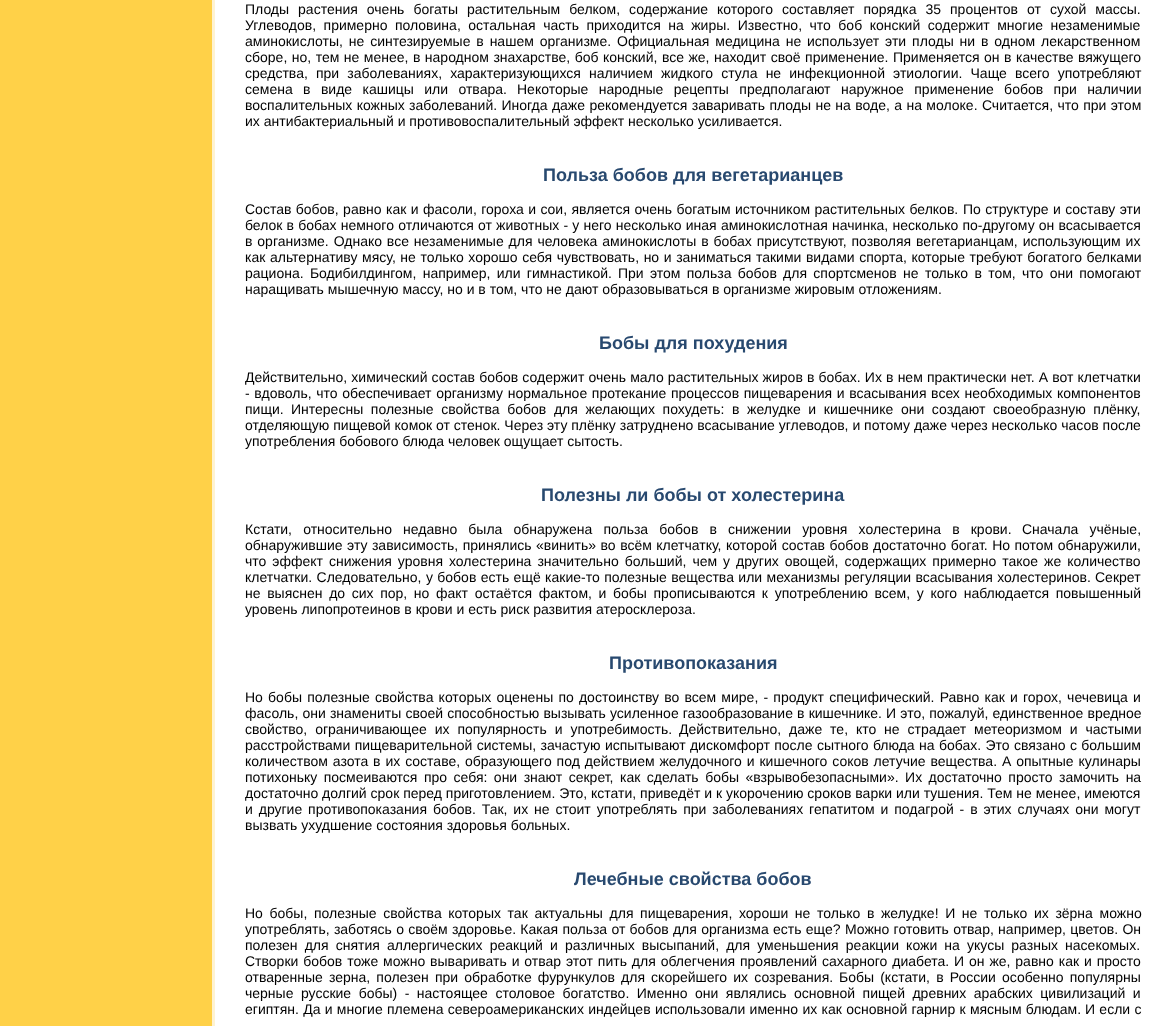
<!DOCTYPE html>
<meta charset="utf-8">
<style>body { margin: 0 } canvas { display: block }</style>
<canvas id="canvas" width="1176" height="1026"></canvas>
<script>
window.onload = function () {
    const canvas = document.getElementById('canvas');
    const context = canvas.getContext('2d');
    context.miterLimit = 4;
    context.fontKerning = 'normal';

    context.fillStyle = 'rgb(255, 255, 255)';
    context.fillRect(0, 0, 1176, 1026);
    context.fillStyle = 'rgb(255, 209, 72)';
    context.fillRect(0, 0, 212, 1026);
    context.fillStyle = 'rgb(255, 243, 209)';
    context.fillRect(212, 0, 3, 1026);
    context.wordSpacing = '5.1px';
    context.font = '14px Liberation Sans';
    context.fillStyle = 'rgb(0, 0, 0)';
    context.fillText('Плоды растения очень богаты растительным белком, содержание которого составляет порядка 35 процентов от сухой массы.', 245, 14);
    context.wordSpacing = '3.6px';
    context.fillText('Углеводов, примерно половина, остальная часть приходится на жиры. Известно, что боб конский содержит многие незаменимые', 245, 30);
    context.wordSpacing = '2px';
    context.fillText('аминокислоты, не синтезируемые в нашем организме.', 245, 46);
    context.fillText('Официальная медицина не использует эти плоды ни в одном лекарственном', 617, 46);
    context.wordSpacing = '0.6px';
    context.fillText('сборе, но, тем не менее, в народном знахарстве, боб конский, все же, находит своё применение.', 245, 62);
    context.fillText('Применяется он в качестве вяжущего', 893, 62);
    context.wordSpacing = '4.25px';
    context.fillText('средства, при заболеваниях, характеризующихся наличием жидкого стула не инфекционной этиологии. Чаще всего употребляют', 245, 78);
    context.wordSpacing = '6.5px';
    context.fillText('семена в виде кашицы или отвара.', 245, 94);
    context.fillText('Некоторые народные рецепты предполагают наружное применение бобов при наличии', 517, 94);
    context.wordSpacing = '0.5px';
    context.fillText('воспалительных кожных заболеваний. Иногда даже рекомендуется заваривать плоды не на воде, а на молоке. Считается, что при этом', 245, 110);
    context.wordSpacing = '0px';
    context.fillText('их антибактериальный и противовоспалительный эффект несколько усиливается.', 245, 126);
    context.font = 'bold 18px Liberation Sans';
    context.fillStyle = 'rgb(40, 73, 111)';
    context.fillText('Польза бобов для вегетарианцев', 543, 181);
    context.wordSpacing = '0.5px';
    context.font = '14px Liberation Sans';
    context.fillStyle = 'rgb(0, 0, 0)';
    context.fillText('Состав бобов, равно как и фасоли, гороха и сои, является очень богатым источником растительных белков.', 245, 214);
    context.fillText('По структуре и составу эти', 963, 214);
    context.wordSpacing = '0.3px';
    context.fillText('белок в бобах немного отличаются от животных - у него несколько иная аминокислотная начинка, несколько по-другому он всасывается', 245, 230);
    context.wordSpacing = '1px';
    context.fillText('в организме. Однако все незаменимые для человека аминокислоты в бобах присутствуют, позволяя вегетарианцам, использующим их', 245, 246);
    context.wordSpacing = '0.7px';
    context.fillText('как альтернативу мясу, не только хорошо себя чувствовать, но и заниматься такими видами спорта, которые требуют богатого белками', 245, 262);
    context.wordSpacing = '2.4px';
    context.fillText('рациона. Бодибилдингом, например, или гимнастикой.', 245, 278);
    context.fillText('При этом польза бобов для спортсменов не только в том, что они помогают', 618, 278);
    context.wordSpacing = '0px';
    context.fillText('наращивать мышечную массу, но и в том, что не дают образовываться в организме жировым отложениям.', 245, 294);
    context.font = 'bold 18px Liberation Sans';
    context.fillStyle = 'rgb(40, 73, 111)';
    context.fillText('Бобы для похудения', 599, 349);
    context.wordSpacing = '0.25px';
    context.font = '14px Liberation Sans';
    context.fillStyle = 'rgb(0, 0, 0)';
    context.fillText('Действительно, химический состав бобов содержит очень мало растительных жиров в бобах. Их в нем практически нет. А вот клетчатки', 245, 382);
    context.wordSpacing = '0.75px';
    context.fillText('- вдоволь, что обеспечивает организму нормальное протекание процессов пищеварения и всасывания всех необходимых компонентов', 245, 398);
    context.wordSpacing = '0px';
    context.fillText('пищи.', 245, 414);
    context.wordSpacing = '3.75px';
    context.fillText('Интересны полезные свойства бобов для желающих похудеть: в желудке и кишечнике они создают своеобразную плёнку,', 291, 414);
    context.wordSpacing = '0px';
    context.fillText('отделяющую пищевой комок от стенок. Через эту плёнку затруднено всасывание углеводов, и потому даже через несколько часов после', 245, 430);
    context.fillText('употребления бобового блюда человек ощущает сытость.', 245, 446);
    context.font = 'bold 18px Liberation Sans';
    context.fillStyle = 'rgb(40, 73, 111)';
    context.fillText('Полезны ли бобы от холестерина', 541, 501);
    context.wordSpacing = '7.25px';
    context.font = '14px Liberation Sans';
    context.fillStyle = 'rgb(0, 0, 0)';
    context.fillText('Кстати, относительно недавно была обнаружена польза бобов в снижении уровня холестерина в крови.', 245, 534);
    context.fillText('Сначала учёные,', 1022, 534);
    context.wordSpacing = '0.6px';
    context.fillText('обнаружившие эту зависимость, принялись «винить» во всём клетчатку, которой состав бобов достаточно богат. Но потом обнаружили,', 245, 550);
    context.wordSpacing = '2.1px';
    context.fillText('что эффект снижения уровня холестерина значительно больший, чем у других овощей, содержащих примерно такое же количество', 245, 566);
    context.wordSpacing = '0.5px';
    context.fillText('клетчатки. Следовательно, у бобов есть ещё какие-то полезные вещества или механизмы регуляции всасывания холестеринов.', 245, 582);
    context.wordSpacing = '0px';
    context.fillText('Секрет', 1095, 582);
    context.wordSpacing = '2.75px';
    context.fillText('не выяснен до сих пор, но факт остаётся фактом, и бобы прописываются к употреблению всем, у кого наблюдается повышенный', 245, 598);
    context.wordSpacing = '0px';
    context.fillText('уровень липопротеинов в крови и есть риск развития атеросклероза.', 245, 614);
    context.font = 'bold 18px Liberation Sans';
    context.fillStyle = 'rgb(40, 73, 111)';
    context.fillText('Противопоказания', 609, 669);
    context.wordSpacing = '1.3px';
    context.font = '14px Liberation Sans';
    context.fillStyle = 'rgb(0, 0, 0)';
    context.fillText('Но бобы полезные свойства которых оценены по достоинству во всем мире, - продукт специфический. Равно как и горох, чечевица и', 245, 702);
    context.wordSpacing = '0.25px';
    context.fillText('фасоль, они знамениты своей способностью вызывать усиленное газообразование в кишечнике. И это, пожалуй, единственное вредное', 245, 718);
    context.wordSpacing = '4px';
    context.fillText('свойство, ограничивающее их популярность и употребимость.', 245, 734);
    context.fillText('Действительно, даже те, кто не страдает метеоризмом и частыми', 679, 734);
    context.wordSpacing = '0.5px';
    context.fillText('расстройствами пищеварительной системы, зачастую испытывают дискомфорт после сытного блюда на бобах. Это связано с большим', 245, 750);
    context.wordSpacing = '1px';
    context.fillText('количеством азота в их составе, образующего под действием желудочного и кишечного соков летучие вещества.', 245, 766);
    context.fillText('А опытные кулинары', 1002, 766);
    context.wordSpacing = '2.6px';
    context.fillText('потихоньку посмеиваются про себя: они знают секрет, как сделать бобы «взрывобезопасными». Их достаточно просто замочить на', 245, 782);
    context.wordSpacing = '0px';
    context.fillText('достаточно долгий срок перед приготовлением. Это, кстати, приведёт и к укорочению сроков варки или тушения. Тем не менее, имеются', 245, 798);
    context.wordSpacing = '2px';
    context.fillText('и другие противопоказания бобов. Так, их не стоит употреблять при заболеваниях гепатитом и подагрой - в этих случаях они могут', 245, 814);
    context.wordSpacing = '0px';
    context.fillText('вызвать ухудшение состояния здоровья больных.', 245, 830);
    context.font = 'bold 18px Liberation Sans';
    context.fillStyle = 'rgb(40, 73, 111)';
    context.fillText('Лечебные свойства бобов', 574, 885);
    context.wordSpacing = '2.75px';
    context.font = '14px Liberation Sans';
    context.fillStyle = 'rgb(0, 0, 0)';
    context.fillText('Но бобы, полезные свойства которых так актуальны для пищеварения, хороши не только в желудке! И не только их зёрна можно', 245, 918);
    context.wordSpacing = '0.4px';
    context.fillText('употреблять, заботясь о своём здоровье. Какая польза от бобов для организма есть еще?', 245, 934);
    context.fillText('Можно готовить отвар, например, цветов. Он', 845, 934);
    context.wordSpacing = '3.25px';
    context.fillText('полезен для снятия аллергических реакций и различных высыпаний, для уменьшения реакции кожи на укусы разных насекомых.', 245, 950);
    context.wordSpacing = '1px';
    context.fillText('Створки бобов тоже можно вываривать и отвар этот пить для облегчения проявлений сахарного диабета. И он же, равно как и просто', 245, 966);
    context.wordSpacing = '2.25px';
    context.fillText('отваренные зерна, полезен при обработке фурункулов для скорейшего их созревания.', 245, 982);
    context.fillText('Бобы (кстати, в России особенно популярны', 839, 982);
    context.wordSpacing = '3.6px';
    context.fillText('черные русские бобы) - настоящее столовое богатство. Именно они являлись основной пищей древних арабских цивилизаций и', 245, 998);
    context.wordSpacing = '0.4px';
    context.fillText('египтян. Да и многие племена североамериканских индейцев использовали именно их как основной гарнир к мясным блюдам.', 245, 1014);
    context.fillText('И если с', 1085, 1014);
};
</script>
